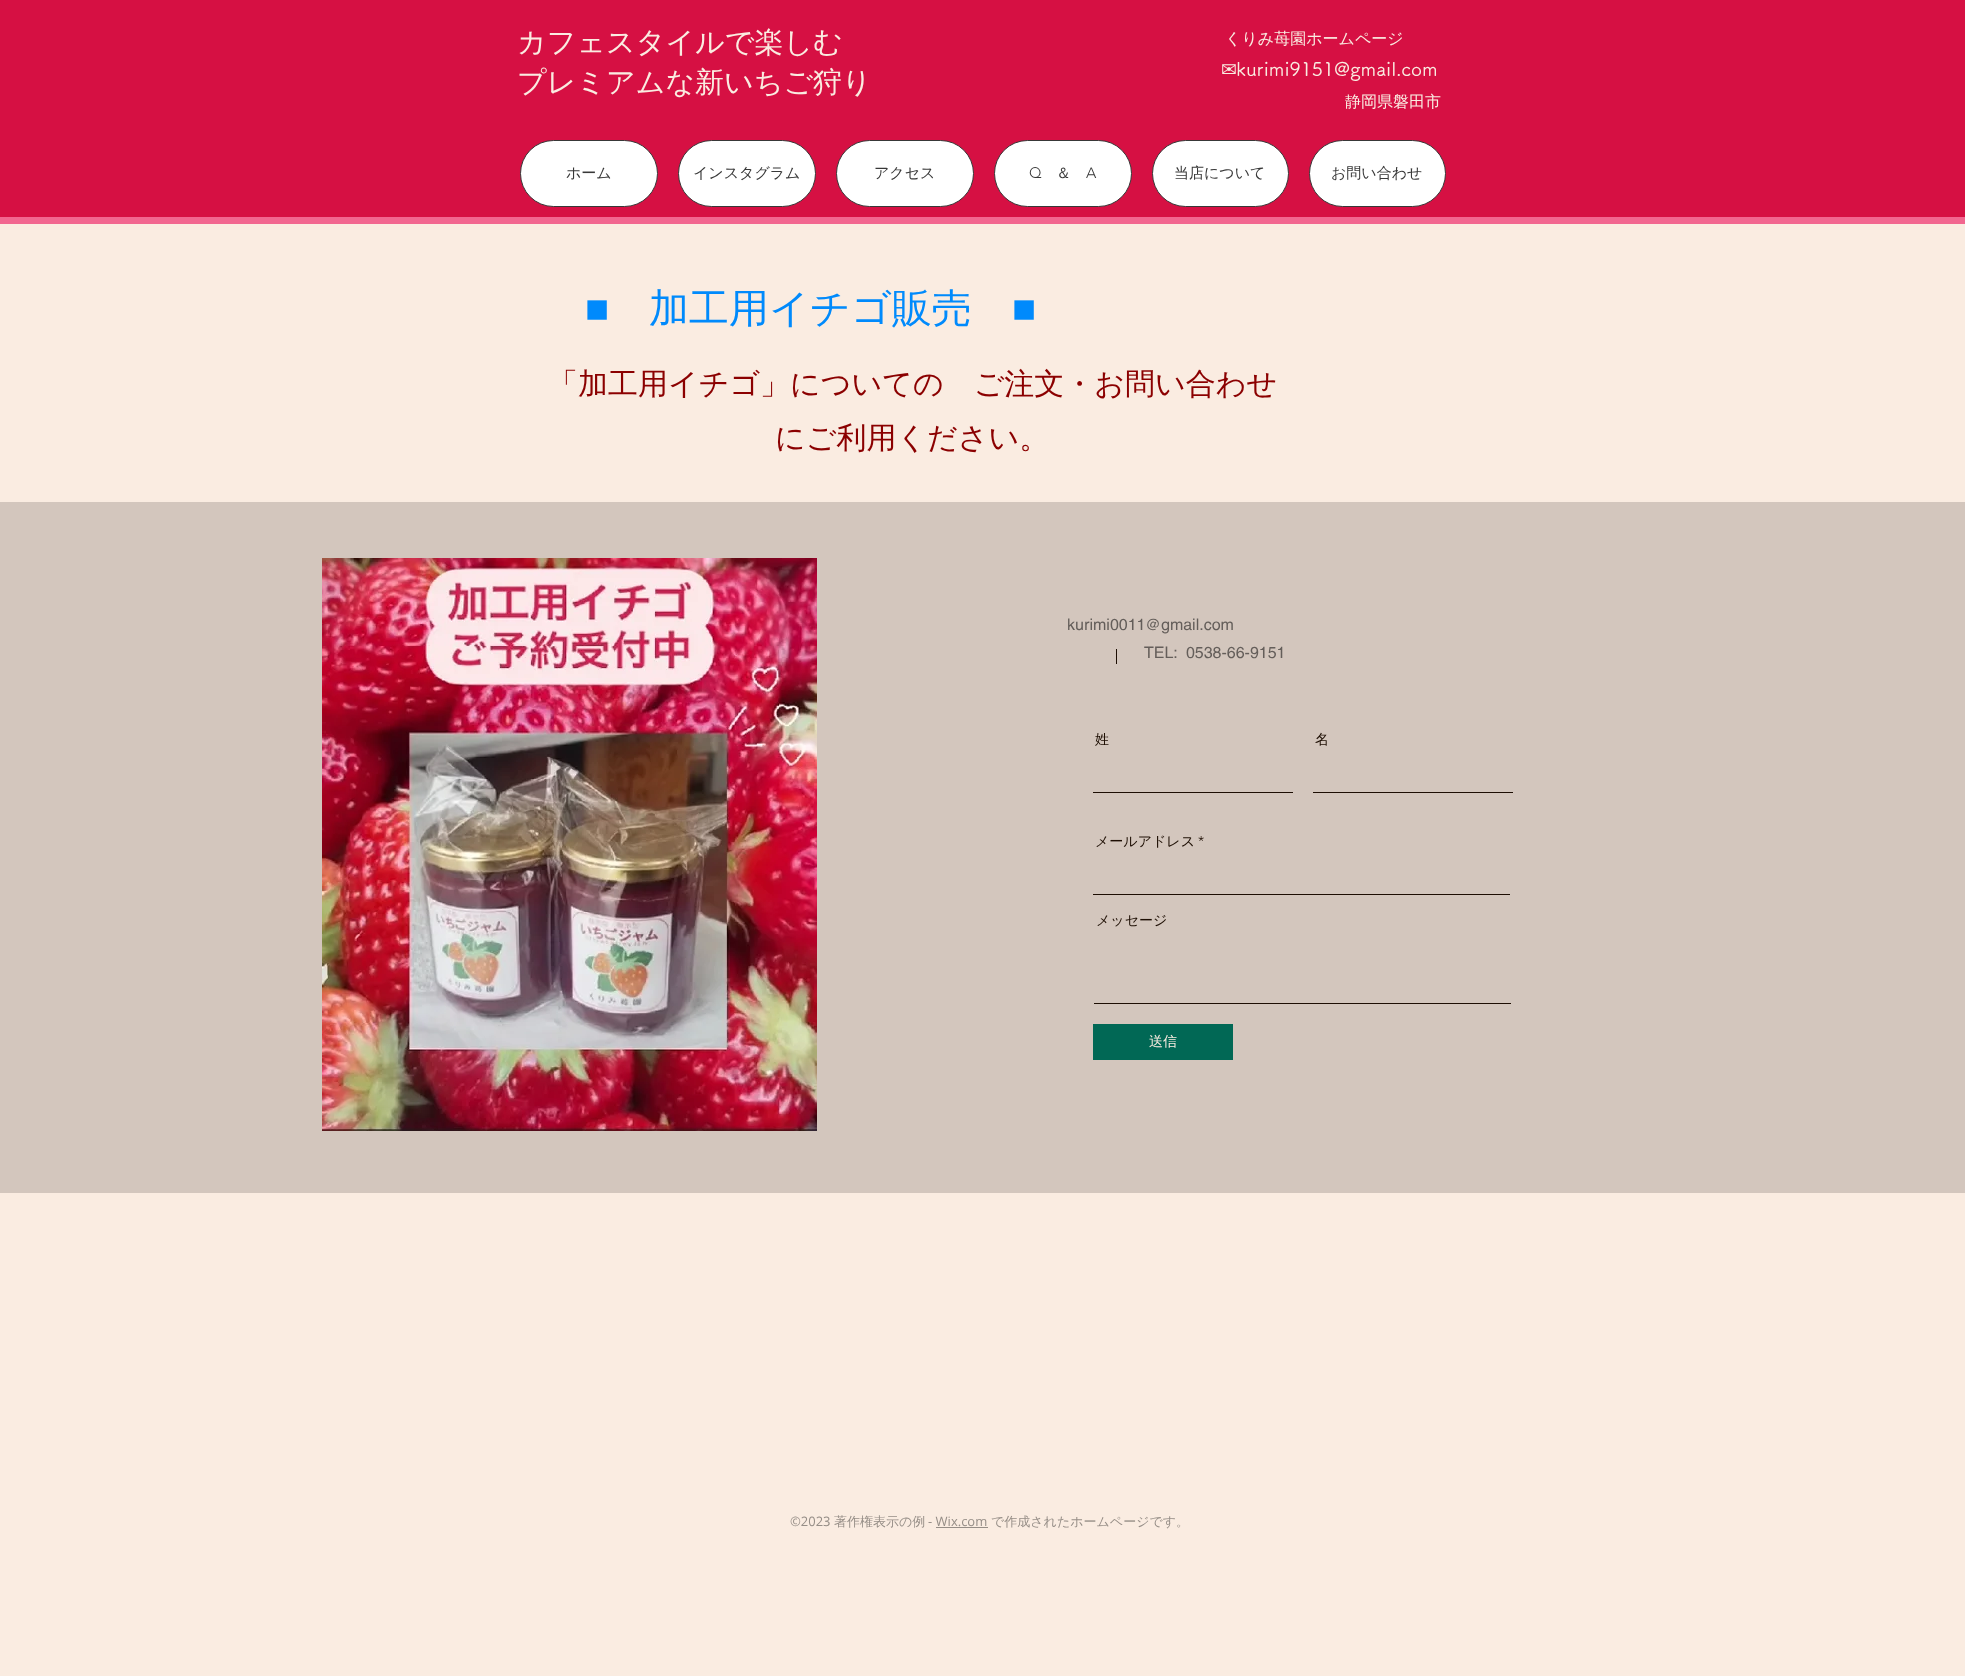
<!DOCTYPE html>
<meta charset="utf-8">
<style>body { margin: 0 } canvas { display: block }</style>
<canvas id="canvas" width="1965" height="1676"></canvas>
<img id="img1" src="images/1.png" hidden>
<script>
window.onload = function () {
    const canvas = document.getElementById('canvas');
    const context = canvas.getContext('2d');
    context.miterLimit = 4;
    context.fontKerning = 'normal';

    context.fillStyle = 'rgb(250, 236, 225)';
    context.fillRect(0, 0, 1965, 1676);
    context.fillStyle = 'rgb(214, 16, 67)';
    context.fillRect(0, 0, 1965, 217);
    context.fillStyle = 'rgb(242, 102, 143)';
    context.fillRect(0, 217, 1965, 7);
    context.fillStyle = 'rgb(255, 255, 255)';
    context.beginPath();
    context.roundRect(520.5, 140.5, 137, 66, 33);
    context.fill();
    context.strokeStyle = 'rgb(56, 56, 56)';
    context.stroke();
    context.beginPath();
    context.roundRect(678.5, 140.5, 137, 66, 33);
    context.fill();
    context.stroke();
    context.beginPath();
    context.roundRect(836.5, 140.5, 137, 66, 33);
    context.fill();
    context.stroke();
    context.beginPath();
    context.roundRect(994.5, 140.5, 137, 66, 33);
    context.fill();
    context.stroke();
    context.beginPath();
    context.roundRect(1152.5, 140.5, 136, 66, 33);
    context.fill();
    context.stroke();
    context.beginPath();
    context.roundRect(1309.5, 140.5, 136, 66, 33);
    context.fill();
    context.stroke();
    context.fillStyle = 'rgb(211, 198, 189)';
    context.fillRect(0, 502, 1965, 691);
    context.drawImage(document.getElementById('img1'), 322, 558, 495, 573);
    context.fillStyle = 'rgb(29, 14, 3)';
    context.fillRect(1116, 649, 1, 15);
    context.fillRect(1093, 792, 200, 1);
    context.fillRect(1313, 792, 200, 1);
    context.fillRect(1093, 894, 417, 1);
    context.fillRect(1094, 1003, 417, 1);
    context.fillStyle = 'rgb(1, 104, 85)';
    context.fillRect(1093, 1024, 140, 36);
    context.fillStyle = 'rgb(150, 142, 135)';
    context.fillRect(936, 1527, 52, 1);
    context.font = '500 29px WenQuanYi Zen Hei';
    context.fillStyle = 'rgb(250, 236, 225)';
    context.fillText('カフェスタイルで楽しむ', 517, 52);
    context.fillText('プレミアムな新いちご狩り', 517, 92);
    context.font = '500 16px WenQuanYi Zen Hei';
    context.fillText('くりみ苺園ホームページ', 1225, 44);
    context.font = '19px DejaVu Sans';
    context.fillText('✉', 1221, 76);
    context.font = '500 19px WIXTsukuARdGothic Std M';
    context.fillText('kurimi9151@gmail.com', 1236, 76);
    context.font = '500 16px WenQuanYi Zen Hei';
    context.fillText('静岡県磐田市', 1345, 107);
    context.font = '500 15px WenQuanYi Zen Hei';
    context.fillStyle = 'rgb(56, 56, 56)';
    context.fillText('ホーム', 566, 178);
    context.fillText('インスタグラム', 693, 178);
    context.fillText('アクセス', 874, 178);
    context.font = '300 15px "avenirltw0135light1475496"';
    context.fillText('Q', 1029, 178);
    context.font = '500 15px WenQuanYi Zen Hei';
    context.fillText('＆', 1056, 178);
    context.font = '300 15px "avenirltw0135light1475496"';
    context.fillText('A', 1086, 178);
    context.font = '500 15px WenQuanYi Zen Hei';
    context.fillText('当店について', 1174, 178);
    context.fillText('お問い合わせ', 1331, 178);
    context.font = '40px Liberation Sans';
    context.fillStyle = 'rgb(0, 138, 252)';
    context.fillText('■', 585, 322);
    context.font = '500 40px WenQuanYi Zen Hei';
    context.fillText('加工用イチゴ販売', 649, 322);
    context.font = '40px Liberation Sans';
    context.fillText('■', 1012, 322);
    context.font = '500 30px WenQuanYi Zen Hei';
    context.fillStyle = 'rgb(139, 0, 0)';
    context.fillText('「加工用イチゴ」についての　ご注文・お問い合わせ', 548, 394);
    context.fillText('にご利用ください。', 775, 448);
    context.font = '16px helvetica';
    context.fillStyle = 'rgb(100, 94, 90)';
    context.fillText('kurimi0011', 1067, 630);
    context.font = '500 16px WenQuanYi Zen Hei';
    context.fillText('＠', 1145, 630);
    context.font = '16px helvetica';
    context.fillText('gmail.com', 1161, 630);
    context.fillText('TEL:  0538-66-9151', 1144, 658);
    context.font = '500 14px WenQuanYi Zen Hei';
    context.fillStyle = 'rgb(29, 14, 3)';
    context.fillText('姓', 1095, 744);
    context.fillText('名', 1315, 744);
    context.fillText('メールアドレス', 1095, 846);
    context.font = '300 14px "avenirltw0135light1475496"';
    context.fillText('*', 1198, 846);
    context.font = '500 14px WenQuanYi Zen Hei';
    context.fillText('メッセージ', 1096, 925);
    context.fillStyle = 'rgb(250, 236, 225)';
    context.fillText('送信', 1149, 1046);
    context.font = '13px Open Sans';
    context.fillStyle = 'rgb(150, 142, 135)';
    context.fillText('©2023', 790, 1526);
    context.font = '500 13px WenQuanYi Zen Hei';
    context.fillText('著作権表示の例', 834, 1526);
    context.font = '13px Open Sans';
    context.fillText('- Wix.com', 928, 1526);
    context.font = '500 13px WenQuanYi Zen Hei';
    context.fillText('で作成されたホームページです。', 991, 1526);
};
</script>
